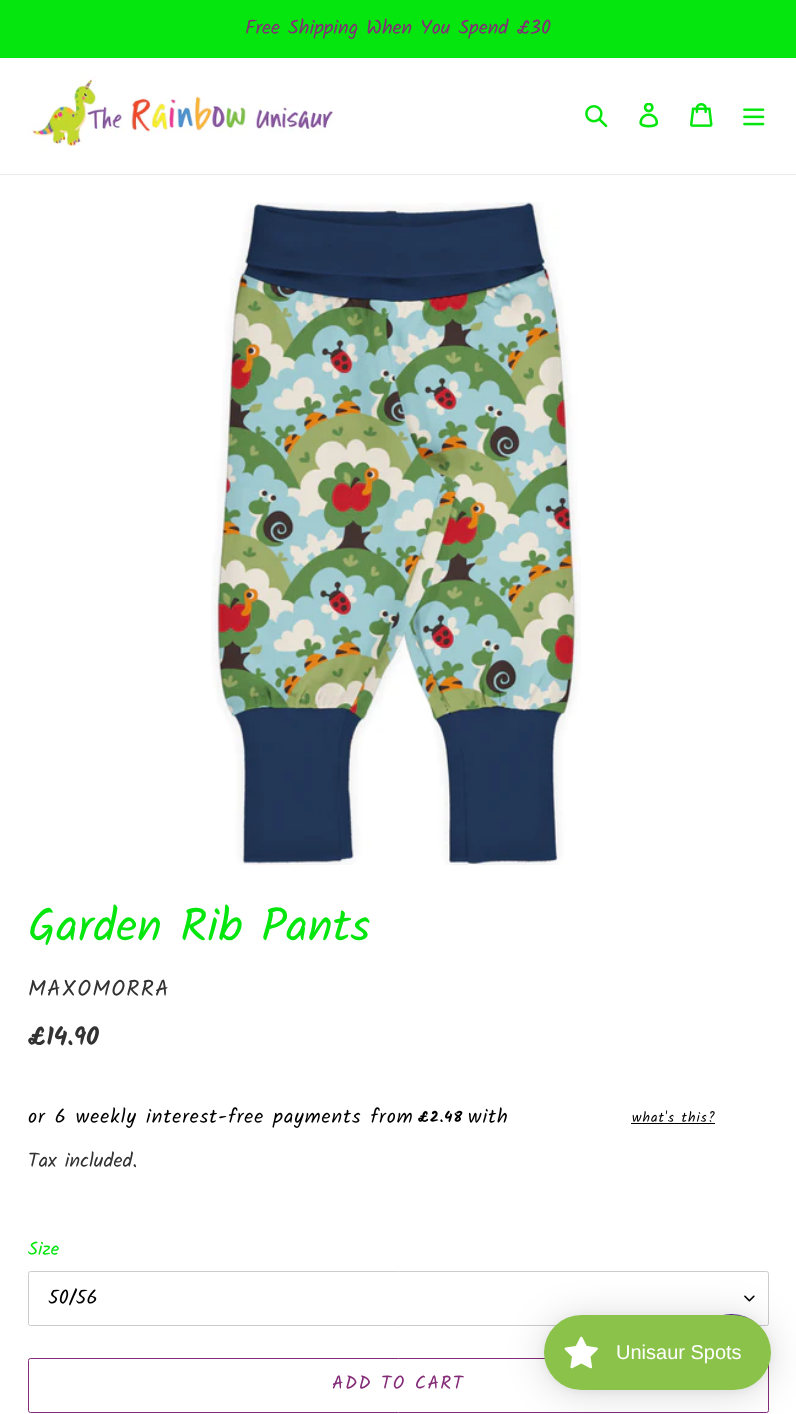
<!DOCTYPE html>
<meta charset="utf-8">
<style>body { margin: 0 } canvas { display: block }</style>
<canvas id="canvas" width="796" height="1414"></canvas>
<img id="img1" src="images/1.png" hidden>
<img id="img2" src="images/2.png" hidden>
<img id="img3" src="images/3.png" hidden>
<img id="img4" src="images/4.png" hidden>
<img id="img5" src="images/5.png" hidden>
<img id="img6" src="images/6.png" hidden>
<img id="img7" src="images/7.png" hidden>
<img id="img8" src="images/8.png" hidden>
<script>
window.onload = function () {
    const canvas = document.getElementById('canvas');
    const context = canvas.getContext('2d');
    context.miterLimit = 4;
    context.fontKerning = 'normal';

    context.fillStyle = 'rgb(255, 255, 255)';
    context.fillRect(0, 0, 796, 1414);
    context.fillStyle = 'rgb(5, 230, 14)';
    context.fillRect(0, 0, 796, 58);
    context.fillStyle = 'rgb(235, 235, 235)';
    context.fillRect(0, 174, 796, 1);
    context.drawImage(document.getElementById('img1'), 28, 76, 305, 71);
    context.drawImage(document.getElementById('img2'), 585, 105, 23, 23);
    context.drawImage(document.getElementById('img3'), 639, 103, 20, 25);
    context.drawImage(document.getElementById('img4'), 690, 103, 23, 24);
    context.drawImage(document.getElementById('img5'), 743, 108, 22, 18);
    context.drawImage(document.getElementById('img6'), 211, 202, 370, 663);
    context.fillStyle = 'rgb(0, 0, 0)';
    context.fillRect(631, 1123, 84, 1);
    context.drawImage(document.getElementById('img7'), 744, 1295, 11, 7);
    context.beginPath();
    context.roundRect(28.5, 1271.5, 740, 54, 2);
    context.strokeStyle = 'rgb(204, 204, 204)';
    context.stroke();
    context.beginPath();
    context.roundRect(28.5, 1358.5, 740, 54, 2);
    context.strokeStyle = 'rgb(132, 44, 120)';
    context.stroke();
    context.fillStyle = 'rgb(85, 37, 159)';
    context.beginPath();
    context.arc(731.5, 1351.5, 37.5, 0, 2 * Math.PI);
    context.fill();
    context.fillStyle = 'rgba(0, 0, 0, 0.15)';
    context.filter = 'blur(19px)';
    context.beginPath();
    context.roundRect(544, 1318, 227, 75, 37.5);
    context.fill();
    context.filter = 'none';
    context.fillStyle = 'rgba(0, 0, 0, 0.05)';
    context.filter = 'blur(4px)';
    context.beginPath();
    context.roundRect(544, 1316, 227, 75, 37.5);
    context.fill();
    context.filter = 'none';
    context.fillStyle = 'rgb(139, 195, 74)';
    context.beginPath();
    context.roundRect(544, 1315, 227, 75, 37.5);
    context.fill();
    context.drawImage(document.getElementById('img8'), 564, 1336, 34, 33);
    context.font = '20px Kalam';
    context.fillStyle = 'rgb(132, 44, 120)';
    context.fillText('Free Shipping When You Spend £30', 245, 34);
    context.font = '46.25px Kalam';
    context.fillStyle = 'rgb(5, 230, 14)';
    context.fillText('Garden Rib Pants', 28, 941);
    context.letterSpacing = '1.25px';
    context.font = '22.5px Kalam';
    context.fillStyle = 'rgb(51, 50, 50)';
    context.fillText('MAXOMORRA', 28, 996);
    context.letterSpacing = '0px';
    context.font = 'bold 25px Kalam';
    context.fillText('£14.90', 28, 1045);
    context.letterSpacing = '1px';
    context.font = '20px Kalam';
    context.fillStyle = 'rgb(0, 0, 0)';
    context.fillText('or 6 weekly interest-free payments from', 28, 1123);
    context.font = 'bold 15px Kalam';
    context.fillText('£2.48', 418, 1122);
    context.font = '20px Kalam';
    context.fillText('with', 468, 1123);
    context.font = '14px Kalam';
    context.fillText('what\'s this?', 632, 1122);
    context.letterSpacing = '0px';
    context.font = '20px Kalam';
    context.fillStyle = 'rgb(51, 50, 50)';
    context.fillText('Tax included.', 28, 1167);
    context.font = '18.75px Kalam';
    context.fillStyle = 'rgb(5, 230, 14)';
    context.fillText('Size', 28, 1255);
    context.font = '20px Kalam';
    context.fillStyle = 'rgb(0, 0, 0)';
    context.fillText('50/56', 48, 1304);
    context.letterSpacing = '1.5px';
    context.font = '18.75px Kalam';
    context.fillStyle = 'rgb(132, 44, 120)';
    context.fillText('ADD TO CART', 332, 1389);
    context.letterSpacing = '0px';
    context.font = '20px Liberation Sans';
    context.fillStyle = 'rgb(255, 255, 255)';
    context.fillText('Unisaur Spots', 616, 1359);
};
</script>
